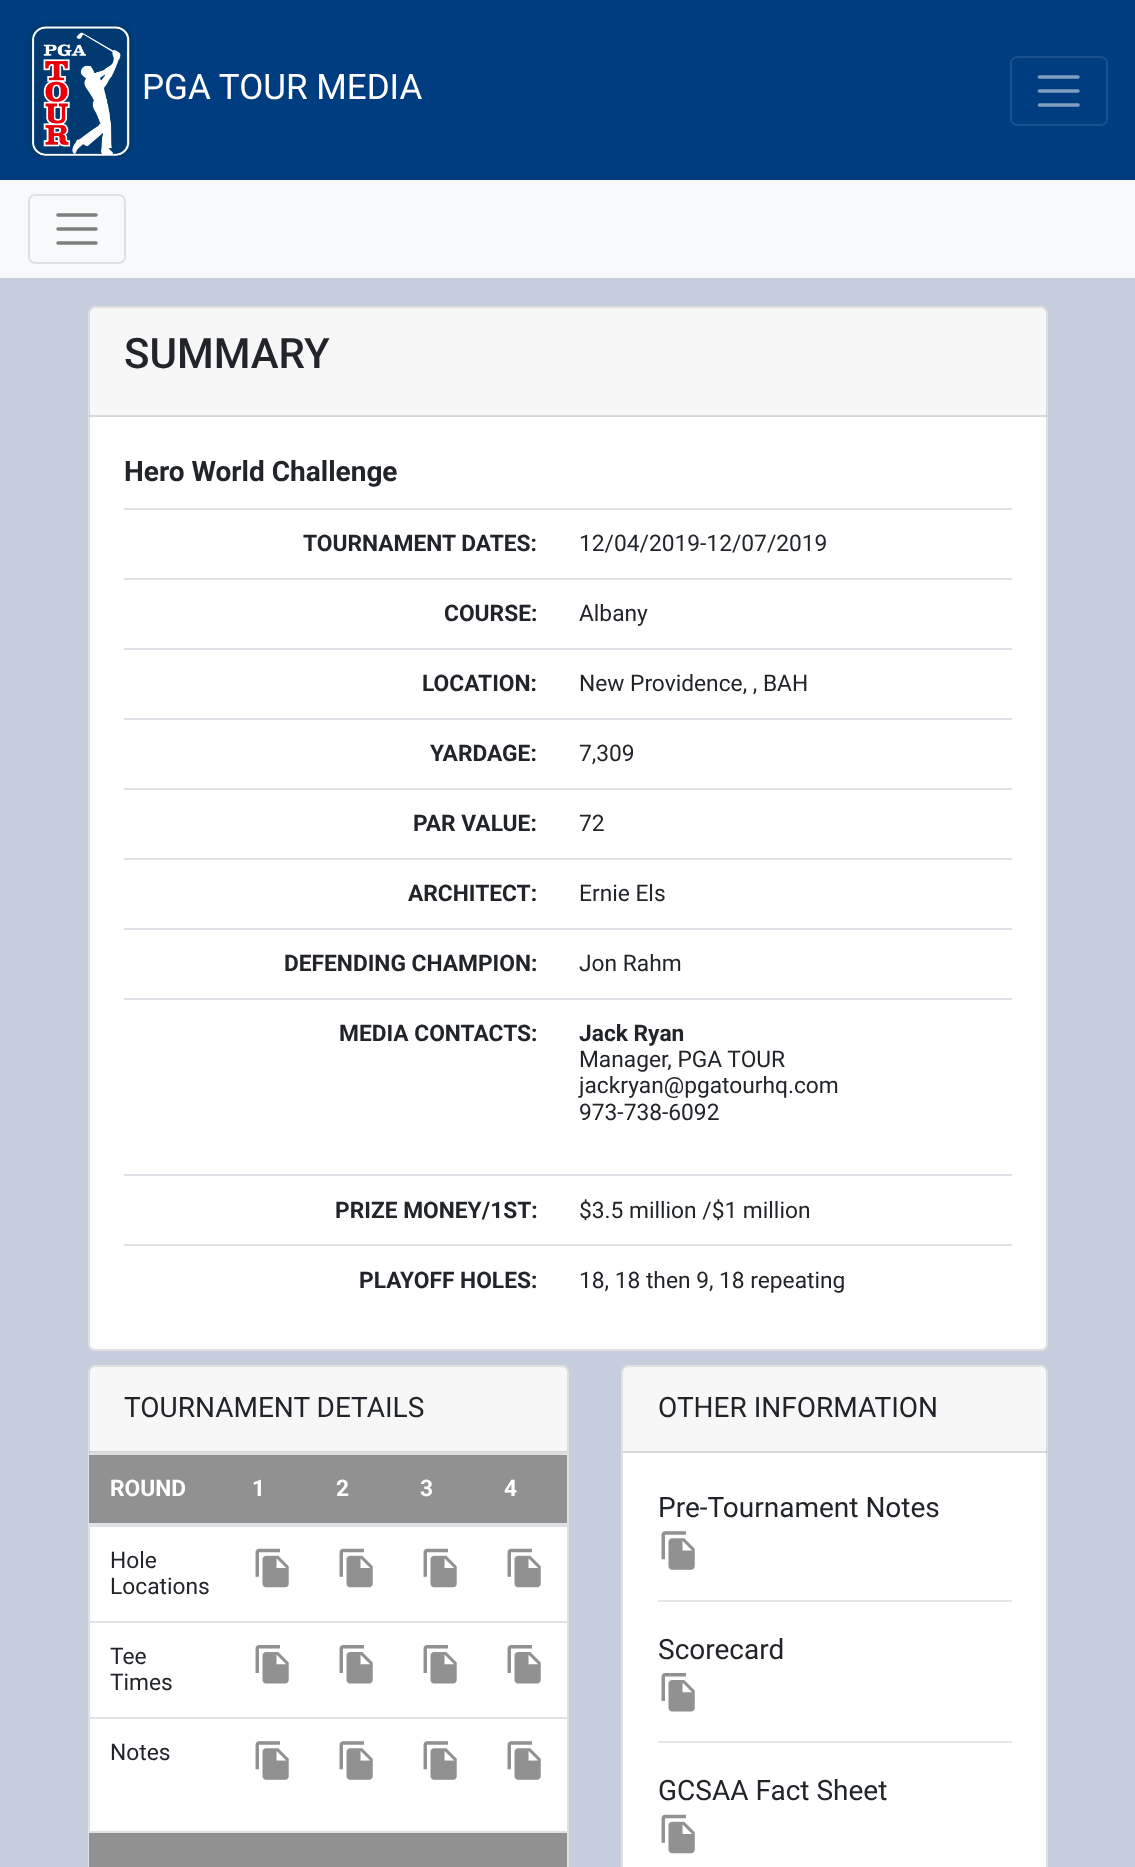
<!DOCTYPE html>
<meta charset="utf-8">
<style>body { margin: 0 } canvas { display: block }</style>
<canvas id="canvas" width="1135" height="1867"></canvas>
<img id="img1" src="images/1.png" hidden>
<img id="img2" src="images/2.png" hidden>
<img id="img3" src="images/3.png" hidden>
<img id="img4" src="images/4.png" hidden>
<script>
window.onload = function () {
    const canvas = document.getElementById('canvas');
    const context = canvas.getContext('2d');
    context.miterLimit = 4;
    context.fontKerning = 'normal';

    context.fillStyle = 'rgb(198, 206, 221)';
    context.fillRect(0, 0, 1135, 1867);
    context.fillStyle = 'rgb(0, 60, 128)';
    context.fillRect(0, 0, 1135, 180);
    context.drawImage(document.getElementById('img1'), 28, 22, 105, 136);
    context.beginPath();
    context.roundRect(1011, 57, 96, 68, 6);
    context.strokeStyle = 'rgb(26, 80, 141)';
    context.lineWidth = 2;
    context.stroke();
    context.beginPath();
    context.moveTo(1039.5, 77);
    context.lineTo(1078, 77);
    context.moveTo(1039.5, 91);
    context.lineTo(1078, 91);
    context.moveTo(1039.5, 105);
    context.lineTo(1078, 105);
    context.strokeStyle = 'rgb(128, 158, 192)';
    context.lineWidth = 3.5;
    context.lineCap = 'round';
    context.stroke();
    context.fillStyle = 'rgb(248, 249, 250)';
    context.fillRect(0, 180, 1135, 98);
    context.beginPath();
    context.roundRect(29, 195, 96, 68, 6);
    context.strokeStyle = 'rgb(223, 224, 225)';
    context.lineWidth = 2;
    context.stroke();
    context.beginPath();
    context.moveTo(58, 215);
    context.lineTo(96, 215);
    context.moveTo(58, 229);
    context.lineTo(96, 229);
    context.moveTo(58, 243);
    context.lineTo(96, 243);
    context.strokeStyle = 'rgb(124, 125, 125)';
    context.lineWidth = 3.5;
    context.stroke();
    context.fillStyle = 'rgb(255, 255, 255)';
    context.beginPath();
    context.roundRect(88, 306, 960, 1045, 7);
    context.fill();
    context.beginPath();
    context.roundRect(89, 307, 958, 1043, 6);
    context.strokeStyle = 'rgba(0, 0, 0, 0.12)';
    context.lineWidth = 2;
    context.stroke();
    context.fillStyle = 'rgba(0, 0, 0, 0.03)';
    context.fillRect(89, 308, 958, 109);
    context.fillStyle = 'rgba(0, 0, 0, 0.12)';
    context.fillRect(89, 415, 958, 2);
    context.fillStyle = 'rgb(222, 226, 230)';
    context.fillRect(124, 508, 888, 2);
    context.fillRect(124, 578, 888, 2);
    context.fillRect(124, 648, 888, 2);
    context.fillRect(124, 718, 888, 2);
    context.fillRect(124, 788, 888, 2);
    context.fillRect(124, 858, 888, 2);
    context.fillRect(124, 928, 888, 2);
    context.fillRect(124, 998, 888, 2);
    context.fillRect(124, 1174, 888, 2);
    context.fillRect(124, 1244, 888, 2);
    context.fillStyle = 'rgb(255, 255, 255)';
    context.beginPath();
    context.roundRect(88, 1365, 481, 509, 7);
    context.fill();
    context.beginPath();
    context.roundRect(89, 1366, 479, 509, 6);
    context.stroke();
    context.fillStyle = 'rgba(0, 0, 0, 0.03)';
    context.fillRect(89, 1367, 478, 86);
    context.fillStyle = 'rgba(0, 0, 0, 0.12)';
    context.fillRect(89, 1451, 478, 2);
    context.fillStyle = 'rgb(145, 145, 145)';
    context.fillRect(89, 1455, 478, 68);
    context.fillStyle = 'rgb(222, 226, 230)';
    context.fillRect(89, 1453, 478, 2);
    context.fillRect(89, 1523, 478, 4);
    context.drawImage(document.getElementById('img2'), 255, 1548, 34, 40);
    context.drawImage(document.getElementById('img2'), 339, 1548, 34, 40);
    context.drawImage(document.getElementById('img2'), 423, 1548, 34, 40);
    context.drawImage(document.getElementById('img2'), 507, 1548, 34, 40);
    context.fillRect(89, 1621, 478, 2);
    context.drawImage(document.getElementById('img3'), 507, 1645, 34, 39);
    context.drawImage(document.getElementById('img3'), 255, 1645, 34, 39);
    context.drawImage(document.getElementById('img3'), 339, 1645, 34, 39);
    context.drawImage(document.getElementById('img3'), 423, 1645, 34, 39);
    context.fillRect(89, 1717, 478, 2);
    context.drawImage(document.getElementById('img4'), 507, 1741, 34, 39);
    context.drawImage(document.getElementById('img4'), 255, 1741, 34, 39);
    context.drawImage(document.getElementById('img4'), 339, 1741, 34, 39);
    context.drawImage(document.getElementById('img4'), 423, 1741, 34, 39);
    context.fillStyle = 'rgb(145, 145, 145)';
    context.fillRect(89, 1833, 478, 34);
    context.fillStyle = 'rgb(222, 226, 230)';
    context.fillRect(89, 1831, 478, 2);
    context.fillStyle = 'rgb(255, 255, 255)';
    context.beginPath();
    context.roundRect(621, 1365, 427, 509, 7);
    context.fill();
    context.beginPath();
    context.roundRect(622, 1366, 425, 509, 6);
    context.stroke();
    context.fillStyle = 'rgba(0, 0, 0, 0.03)';
    context.fillRect(623, 1367, 424, 86);
    context.fillStyle = 'rgba(0, 0, 0, 0.12)';
    context.fillRect(623, 1451, 424, 2);
    context.drawImage(document.getElementById('img4'), 661, 1531, 34, 39);
    context.fillStyle = 'rgb(230, 230, 230)';
    context.fillRect(658, 1600, 354, 2);
    context.drawImage(document.getElementById('img3'), 661, 1673, 34, 39);
    context.fillRect(658, 1741, 354, 2);
    context.drawImage(document.getElementById('img2'), 661, 1814, 34, 40);
    context.font = '35px Roboto';
    context.fillStyle = 'rgb(255, 255, 255)';
    context.fillText('PGA TOUR MEDIA', 142, 99);
    context.font = '500 42px Roboto';
    context.fillStyle = 'rgb(33, 37, 41)';
    context.fillText('SUMMARY', 124, 368);
    context.font = 'bold 28px Roboto';
    context.fillText('Hero World Challenge', 124, 481);
    context.font = 'bold 22.75px Roboto';
    context.fillText('TOURNAMENT DATES:', 303, 551);
    context.font = '22.75px Roboto';
    context.fillText('12/04/2019-12/07/2019', 579, 551);
    context.font = 'bold 22.75px Roboto';
    context.fillText('COURSE:', 444, 621);
    context.font = '22.75px Roboto';
    context.fillText('Albany', 579, 621);
    context.font = 'bold 22.75px Roboto';
    context.fillText('LOCATION:', 422, 691);
    context.font = '22.75px Roboto';
    context.fillText('New Providence, , BAH', 579, 691);
    context.font = 'bold 22.75px Roboto';
    context.fillText('YARDAGE:', 430, 761);
    context.font = '22.75px Roboto';
    context.fillText('7,309', 579, 761);
    context.font = 'bold 22.75px Roboto';
    context.fillText('PAR VALUE:', 413, 831);
    context.font = '22.75px Roboto';
    context.fillText('72', 579, 831);
    context.font = 'bold 22.75px Roboto';
    context.fillText('ARCHITECT:', 408, 901);
    context.font = '22.75px Roboto';
    context.fillText('Ernie Els', 579, 901);
    context.font = 'bold 22.75px Roboto';
    context.fillText('DEFENDING CHAMPION:', 284, 971);
    context.font = '22.75px Roboto';
    context.fillText('Jon Rahm', 579, 971);
    context.font = 'bold 22.75px Roboto';
    context.fillText('MEDIA CONTACTS:', 339, 1041);
    context.fillText('Jack Ryan', 579, 1041);
    context.font = '22.75px Roboto';
    context.fillText('Manager, PGA TOUR', 579, 1067);
    context.fillText('jackryan@pgatourhq.com', 579, 1093);
    context.fillText('973-738-6092', 579, 1120);
    context.font = 'bold 22.75px Roboto';
    context.fillText('PRIZE MONEY/1ST:', 335, 1218);
    context.font = '22.75px Roboto';
    context.fillText('$3.5 million /$1 million', 579, 1218);
    context.font = 'bold 22.75px Roboto';
    context.fillText('PLAYOFF HOLES:', 359, 1288);
    context.font = '22.75px Roboto';
    context.fillText('18, 18 then 9, 18 repeating', 579, 1288);
    context.font = '28px Roboto';
    context.fillText('TOURNAMENT DETAILS', 124, 1417);
    context.font = 'bold 22.75px Roboto';
    context.fillStyle = 'rgb(255, 255, 255)';
    context.fillText('ROUND', 110, 1496);
    context.fillText('1', 252, 1496);
    context.fillText('2', 336, 1496);
    context.fillText('3', 420, 1496);
    context.fillText('4', 504, 1496);
    context.font = '22.75px Roboto';
    context.fillStyle = 'rgb(33, 37, 41)';
    context.fillText('Hole', 110, 1568);
    context.fillText('Locations', 110, 1594);
    context.fillText('Tee', 110, 1664);
    context.fillText('Times', 110, 1690);
    context.fillText('Notes', 110, 1760);
    context.font = '28px Roboto';
    context.fillText('OTHER INFORMATION', 658, 1417);
    context.fillText('Pre-Tournament Notes', 658, 1517);
    context.fillText('Scorecard', 658, 1659);
    context.fillText('GCSAA Fact Sheet', 658, 1800);
};
</script>
